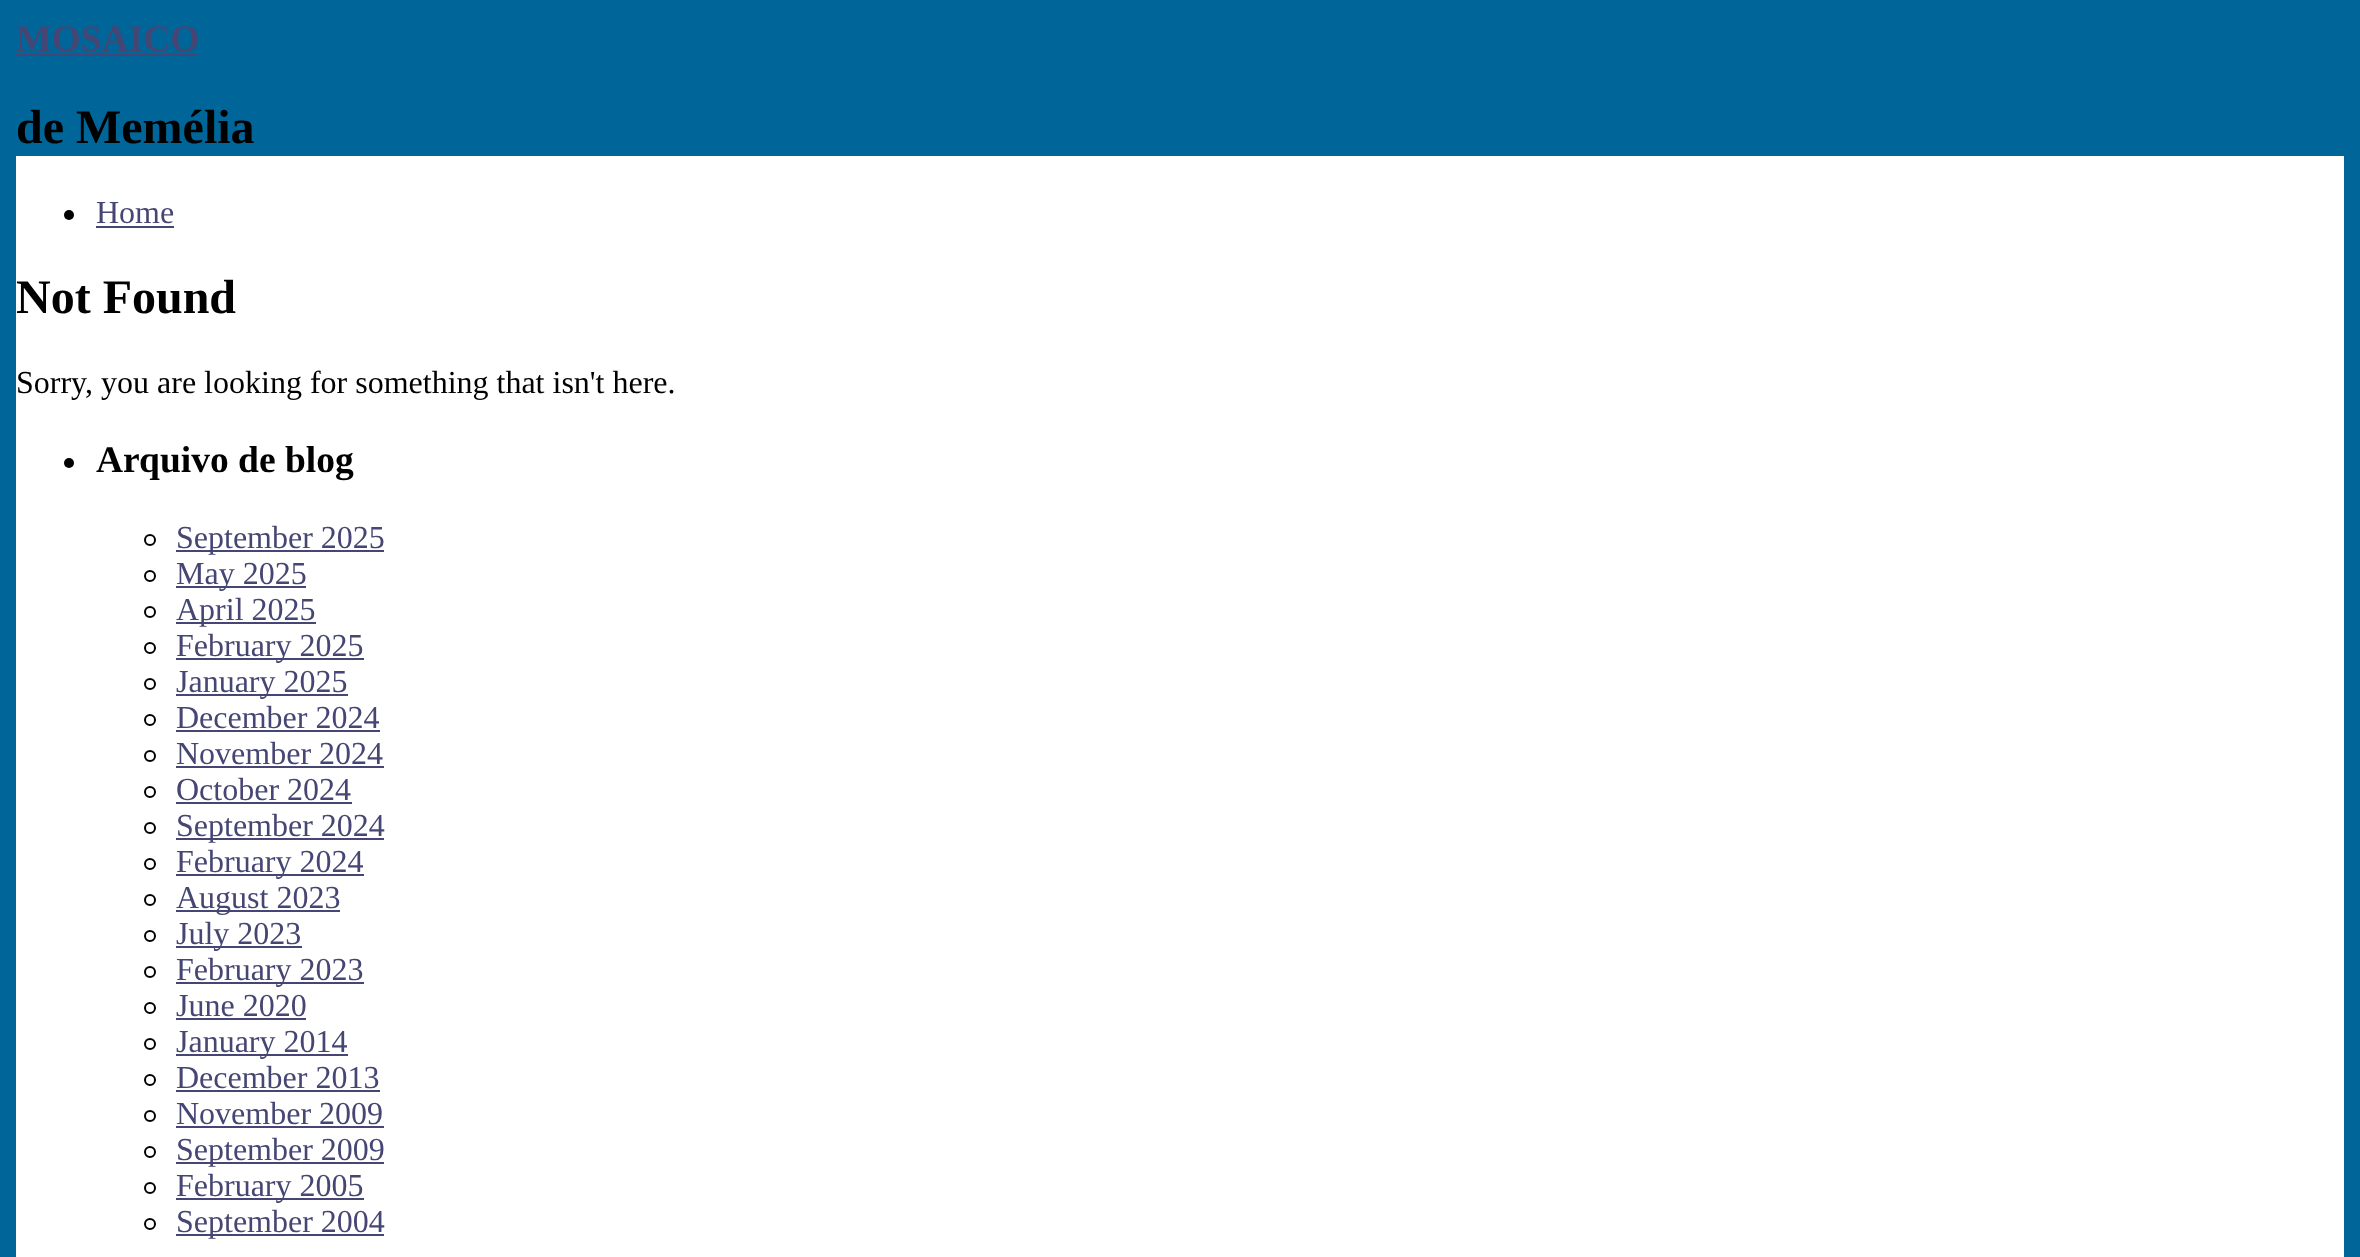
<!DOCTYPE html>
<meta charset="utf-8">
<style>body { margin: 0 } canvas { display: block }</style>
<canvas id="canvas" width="2360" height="1257"></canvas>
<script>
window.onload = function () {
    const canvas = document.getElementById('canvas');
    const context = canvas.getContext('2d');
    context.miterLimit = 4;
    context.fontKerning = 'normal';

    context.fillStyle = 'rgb(0, 102, 153)';
    context.fillRect(0, 0, 2360, 1257);
    context.fillStyle = 'rgb(255, 255, 255)';
    context.fillRect(16, 156, 2328, 1101);
    context.fillStyle = 'rgb(69, 70, 115)';
    context.fillRect(16, 54, 182, 2);
    context.fillStyle = 'rgb(0, 0, 0)';
    context.beginPath();
    context.arc(69, 215, 5, 0, 2 * Math.PI);
    context.fill();
    context.fillStyle = 'rgb(69, 70, 115)';
    context.fillRect(96, 226, 78, 2);
    context.fillStyle = 'rgb(0, 0, 0)';
    context.beginPath();
    context.arc(69, 463, 5, 0, 2 * Math.PI);
    context.fill();
    context.beginPath();
    context.arc(150, 540, 5, 0, 2 * Math.PI);
    context.strokeStyle = 'rgb(0, 0, 0)';
    context.lineWidth = 2;
    context.stroke();
    context.fillStyle = 'rgb(69, 70, 115)';
    context.fillRect(176, 550, 208, 2);
    context.beginPath();
    context.arc(150, 576, 5, 0, 2 * Math.PI);
    context.stroke();
    context.fillRect(176, 586, 130, 2);
    context.beginPath();
    context.arc(150, 612, 5, 0, 2 * Math.PI);
    context.stroke();
    context.fillRect(176, 622, 140, 2);
    context.beginPath();
    context.arc(150, 648, 5, 0, 2 * Math.PI);
    context.stroke();
    context.fillRect(176, 658, 188, 2);
    context.beginPath();
    context.arc(150, 684, 5, 0, 2 * Math.PI);
    context.stroke();
    context.fillRect(176, 694, 172, 2);
    context.beginPath();
    context.arc(150, 720, 5, 0, 2 * Math.PI);
    context.stroke();
    context.fillRect(176, 730, 204, 2);
    context.beginPath();
    context.arc(150, 756, 5, 0, 2 * Math.PI);
    context.stroke();
    context.fillRect(176, 766, 208, 2);
    context.beginPath();
    context.arc(150, 792, 5, 0, 2 * Math.PI);
    context.stroke();
    context.fillRect(176, 802, 176, 2);
    context.beginPath();
    context.arc(150, 828, 5, 0, 2 * Math.PI);
    context.stroke();
    context.fillRect(176, 838, 208, 2);
    context.beginPath();
    context.arc(150, 864, 5, 0, 2 * Math.PI);
    context.stroke();
    context.fillRect(176, 874, 188, 2);
    context.beginPath();
    context.arc(150, 900, 5, 0, 2 * Math.PI);
    context.stroke();
    context.fillRect(176, 910, 164, 2);
    context.beginPath();
    context.arc(150, 936, 5, 0, 2 * Math.PI);
    context.stroke();
    context.fillRect(176, 946, 126, 2);
    context.beginPath();
    context.arc(150, 972, 5, 0, 2 * Math.PI);
    context.stroke();
    context.fillRect(176, 982, 188, 2);
    context.beginPath();
    context.arc(150, 1008, 5, 0, 2 * Math.PI);
    context.stroke();
    context.fillRect(176, 1018, 130, 2);
    context.beginPath();
    context.arc(150, 1044, 5, 0, 2 * Math.PI);
    context.stroke();
    context.fillRect(176, 1054, 172, 2);
    context.beginPath();
    context.arc(150, 1080, 5, 0, 2 * Math.PI);
    context.stroke();
    context.fillRect(176, 1090, 204, 2);
    context.beginPath();
    context.arc(150, 1116, 5, 0, 2 * Math.PI);
    context.stroke();
    context.fillRect(176, 1126, 208, 2);
    context.beginPath();
    context.arc(150, 1152, 5, 0, 2 * Math.PI);
    context.stroke();
    context.fillRect(176, 1162, 208, 2);
    context.beginPath();
    context.arc(150, 1188, 5, 0, 2 * Math.PI);
    context.stroke();
    context.fillRect(176, 1198, 188, 2);
    context.beginPath();
    context.arc(150, 1224, 5, 0, 2 * Math.PI);
    context.stroke();
    context.fillRect(176, 1234, 208, 2);
    context.font = 'bold 37.5px Liberation Serif';
    context.fillText('MOSAICO', 16, 51);
    context.font = 'bold 48px Liberation Serif';
    context.fillStyle = 'rgb(0, 0, 0)';
    context.fillText('de Memélia', 16, 143);
    context.font = '32px Liberation Serif';
    context.fillStyle = 'rgb(69, 70, 115)';
    context.fillText('Home', 96, 223);
    context.font = 'bold 48px Liberation Serif';
    context.fillStyle = 'rgb(0, 0, 0)';
    context.fillText('Not Found', 16, 313);
    context.font = '32px Liberation Serif';
    context.fillText('Sorry, you are looking for something that isn\'t here.', 16, 393);
    context.font = 'bold 37.5px Liberation Serif';
    context.fillText('Arquivo de blog', 96, 472);
    context.font = '32px Liberation Serif';
    context.fillStyle = 'rgb(69, 70, 115)';
    context.fillText('September 2025', 176, 548);
    context.fillText('May 2025', 176, 584);
    context.fillText('April 2025', 176, 620);
    context.fillText('February 2025', 176, 656);
    context.fillText('January 2025', 176, 692);
    context.fillText('December 2024', 176, 728);
    context.fillText('November 2024', 176, 764);
    context.fillText('October 2024', 176, 800);
    context.fillText('September 2024', 176, 836);
    context.fillText('February 2024', 176, 872);
    context.fillText('August 2023', 176, 908);
    context.fillText('July 2023', 176, 944);
    context.fillText('February 2023', 176, 980);
    context.fillText('June 2020', 176, 1016);
    context.fillText('January 2014', 176, 1052);
    context.fillText('December 2013', 176, 1088);
    context.fillText('November 2009', 176, 1124);
    context.fillText('September 2009', 176, 1160);
    context.fillText('February 2005', 176, 1196);
    context.fillText('September 2004', 176, 1232);
};
</script>
